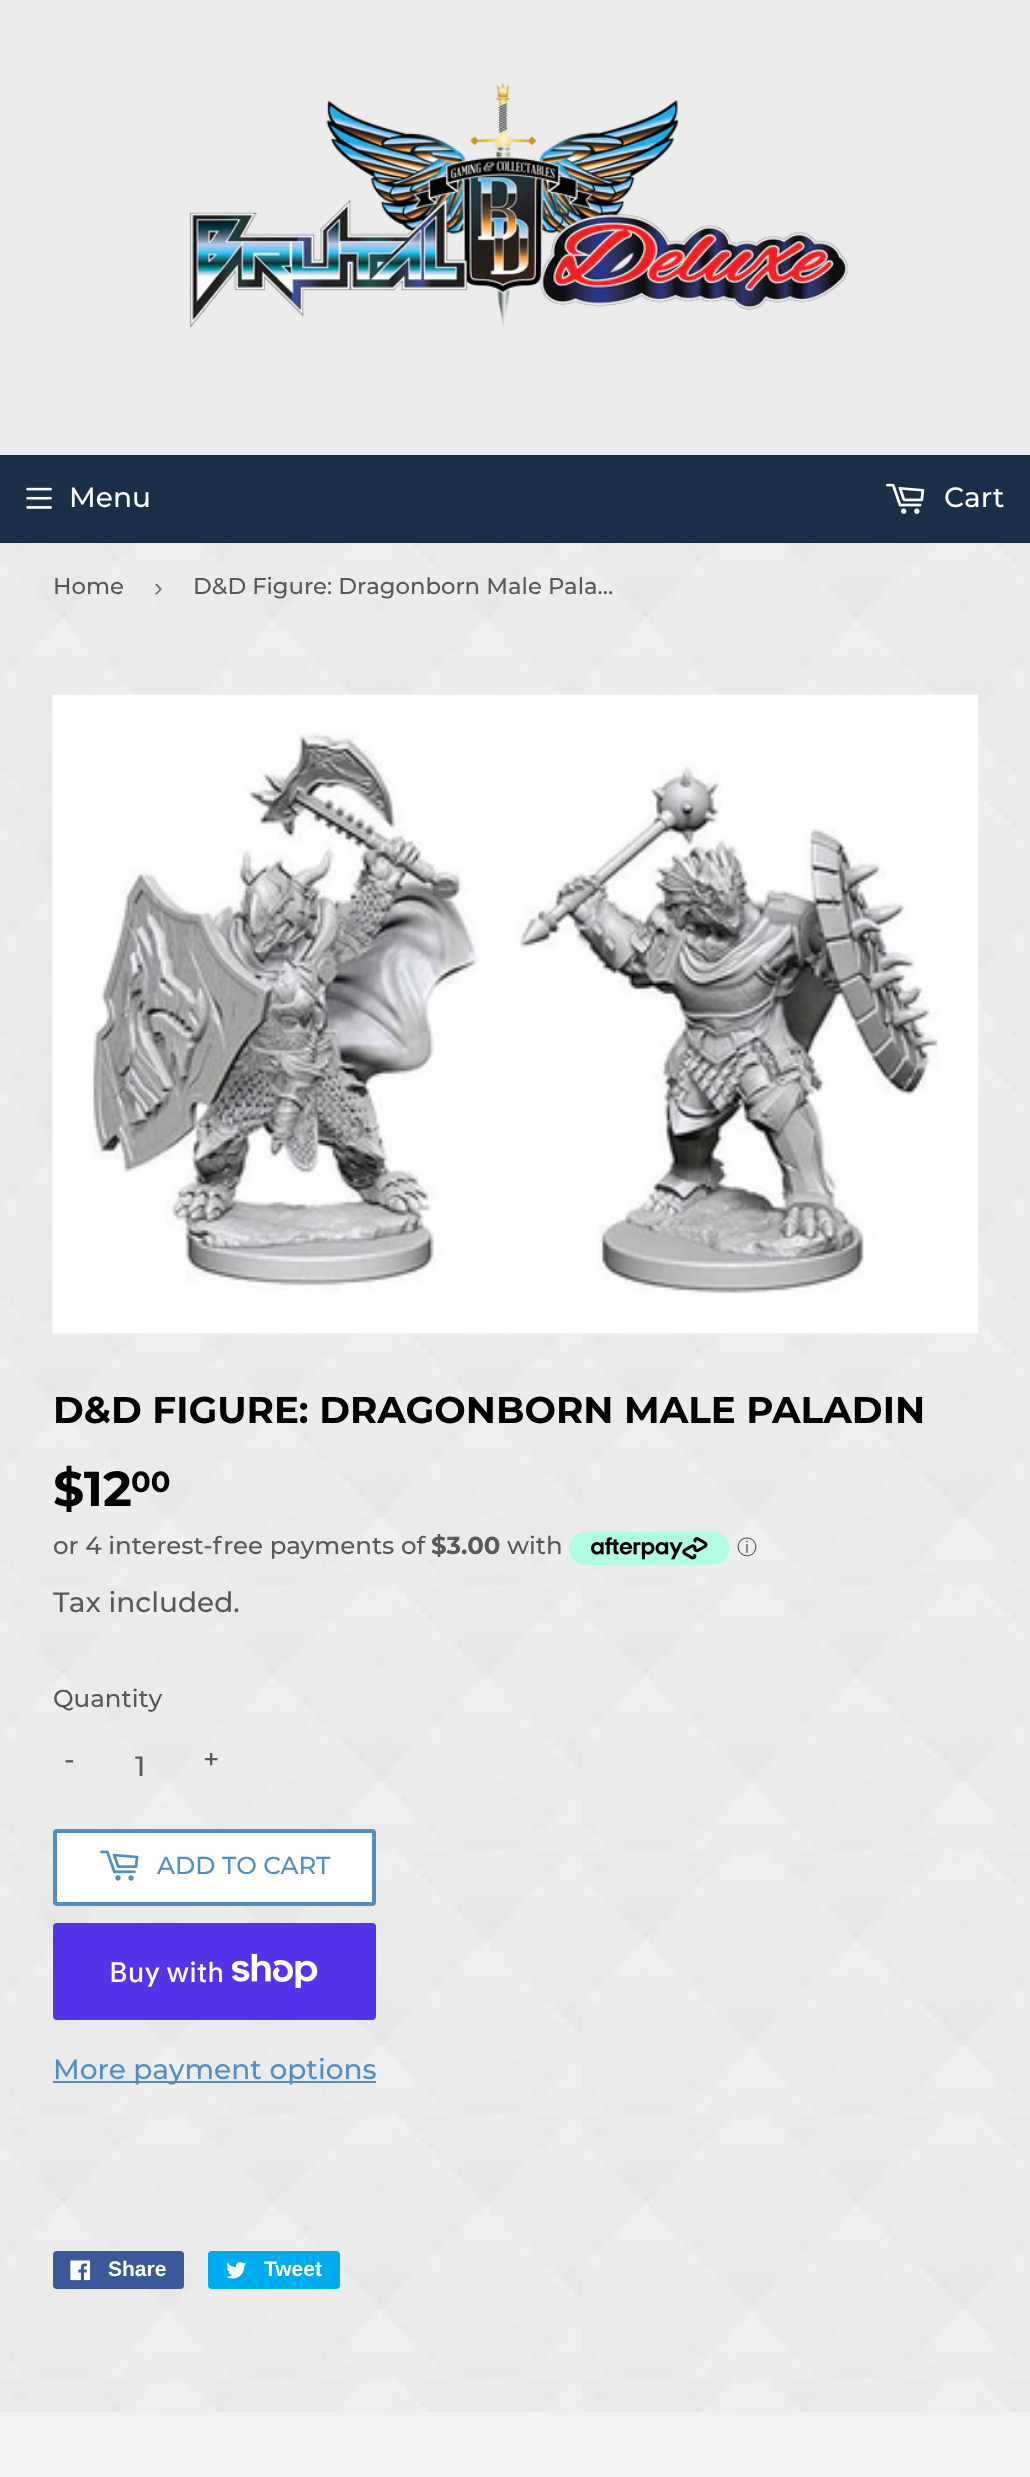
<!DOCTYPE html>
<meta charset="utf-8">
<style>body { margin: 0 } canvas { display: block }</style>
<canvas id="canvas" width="1030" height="2477"></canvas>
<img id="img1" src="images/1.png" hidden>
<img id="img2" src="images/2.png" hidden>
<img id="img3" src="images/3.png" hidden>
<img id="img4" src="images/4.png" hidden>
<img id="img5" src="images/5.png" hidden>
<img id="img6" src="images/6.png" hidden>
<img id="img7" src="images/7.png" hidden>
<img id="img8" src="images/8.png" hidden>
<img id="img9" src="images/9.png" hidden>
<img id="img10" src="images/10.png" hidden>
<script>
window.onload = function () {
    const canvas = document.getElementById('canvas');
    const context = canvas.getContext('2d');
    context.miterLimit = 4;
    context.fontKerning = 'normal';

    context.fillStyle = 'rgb(255, 255, 255)';
    context.fillRect(0, 0, 1030, 2477);
    context.drawImage(document.getElementById('img1'), 0, 543, 1030, 1869);
    context.fillStyle = 'rgb(236, 236, 236)';
    context.fillRect(0, 0, 1030, 455);
    context.drawImage(document.getElementById('img2'), 189, 83, 659, 245);
    context.fillStyle = 'rgb(24, 46, 73)';
    context.fillRect(0, 455, 1030, 88);
    context.drawImage(document.getElementById('img3'), 26, 487, 26, 22);
    context.drawImage(document.getElementById('img4'), 885, 483, 40, 31);
    context.fillStyle = 'rgb(236, 236, 236)';
    context.fillRect(53, 641, 872, 2);
    context.drawImage(document.getElementById('img5'), 52, 694, 927, 640);
    context.drawImage(document.getElementById('img6'), 569, 1531, 161, 34);
    context.beginPath();
    context.roundRect(54, 1730, 173, 75, 3);
    context.strokeStyle = 'rgb(236, 236, 236)';
    context.lineWidth = 2;
    context.stroke();
    context.fillRect(193, 1739, 2, 28);
    context.fillStyle = 'rgb(255, 255, 255)';
    context.beginPath();
    context.roundRect(55, 1831, 319, 73, 2);
    context.fill();
    context.strokeStyle = 'rgb(82, 142, 193)';
    context.lineWidth = 4;
    context.stroke();
    context.drawImage(document.getElementById('img7'), 100, 1850, 39, 31);
    context.fillStyle = 'rgb(84, 51, 235)';
    context.beginPath();
    context.roundRect(53, 1923, 323, 97, 4);
    context.fill();
    context.drawImage(document.getElementById('img8'), 232, 1953, 86, 35);
    context.fillStyle = 'rgb(82, 142, 193)';
    context.fillRect(53, 2081, 323, 2);
    context.fillStyle = 'rgb(236, 236, 236)';
    context.fillRect(53, 2156, 842, 2);
    context.fillStyle = 'rgb(59, 89, 152)';
    context.beginPath();
    context.roundRect(53, 2251, 131, 38, 4);
    context.fill();
    context.drawImage(document.getElementById('img9'), 70, 2260, 21, 21);
    context.fillStyle = 'rgb(0, 172, 237)';
    context.beginPath();
    context.roundRect(208, 2251, 132, 38, 4);
    context.fill();
    context.drawImage(document.getElementById('img10'), 226, 2262, 21, 17);
    context.fillStyle = 'rgb(242, 242, 242)';
    context.fillRect(0, 2412, 1030, 65);
    context.font = '500 28px Montserrat';
    context.fillStyle = 'rgb(255, 255, 255)';
    context.fillText('Menu', 69, 507);
    context.fillText('Cart', 944, 507);
    context.font = '500 22.75px Montserrat';
    context.fillStyle = 'rgb(88, 88, 88)';
    context.fillText('Home', 53, 594);
    context.font = '26px Liberation Sans';
    context.fillStyle = 'rgb(118, 118, 118)';
    context.fillText('›', 154, 596);
    context.font = '500 22.75px Montserrat';
    context.fillStyle = 'rgb(88, 88, 88)';
    context.fillText('D&D Figure: Dragonborn Male Pala…', 193, 594);
    context.font = 'bold 37.3px Montserrat';
    context.fillStyle = 'rgb(0, 0, 0)';
    context.fillText('D&D FIGURE: DRAGONBORN MALE PALADIN', 53, 1423);
    context.font = 'bold 49px Montserrat';
    context.fillText('$12', 53, 1506);
    context.font = 'bold 29px Montserrat';
    context.fillText('00', 131, 1492);
    context.font = '500 24.5px Montserrat';
    context.fillStyle = 'rgb(88, 88, 88)';
    context.fillText('or 4 interest-free payments of', 53, 1554);
    context.font = 'bold 24.5px Montserrat';
    context.fillText('$3.00', 431, 1554);
    context.font = '500 24.5px Montserrat';
    context.fillText('with', 507, 1554);
    context.font = '500 20px WenQuanYi Zen Hei';
    context.fillText('ⓘ', 737, 1554);
    context.font = '500 28px Montserrat';
    context.fillText('Tax included.', 53, 1612);
    context.font = '500 24.5px Montserrat';
    context.fillText('Quantity', 53, 1707);
    context.font = '500 28px Montserrat';
    context.fillText('-', 64, 1769);
    context.fillText('1', 135, 1776);
    context.fillText('+', 203, 1769);
    context.font = '500 24.5px Montserrat';
    context.fillStyle = 'rgb(82, 142, 193)';
    context.fillText('ADD TO CART', 157, 1874);
    context.font = '500 28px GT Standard';
    context.fillStyle = 'rgb(255, 255, 255)';
    context.fillText('Buy with', 109, 1982);
    context.font = '500 28px Montserrat';
    context.fillStyle = 'rgb(82, 142, 193)';
    context.fillText('More payment options', 53, 2079);
    context.font = 'bold 21px Liberation Sans';
    context.fillStyle = 'rgb(255, 255, 255)';
    context.fillText('Share', 108, 2276);
    context.fillText('Tweet', 264, 2276);
};
</script>
